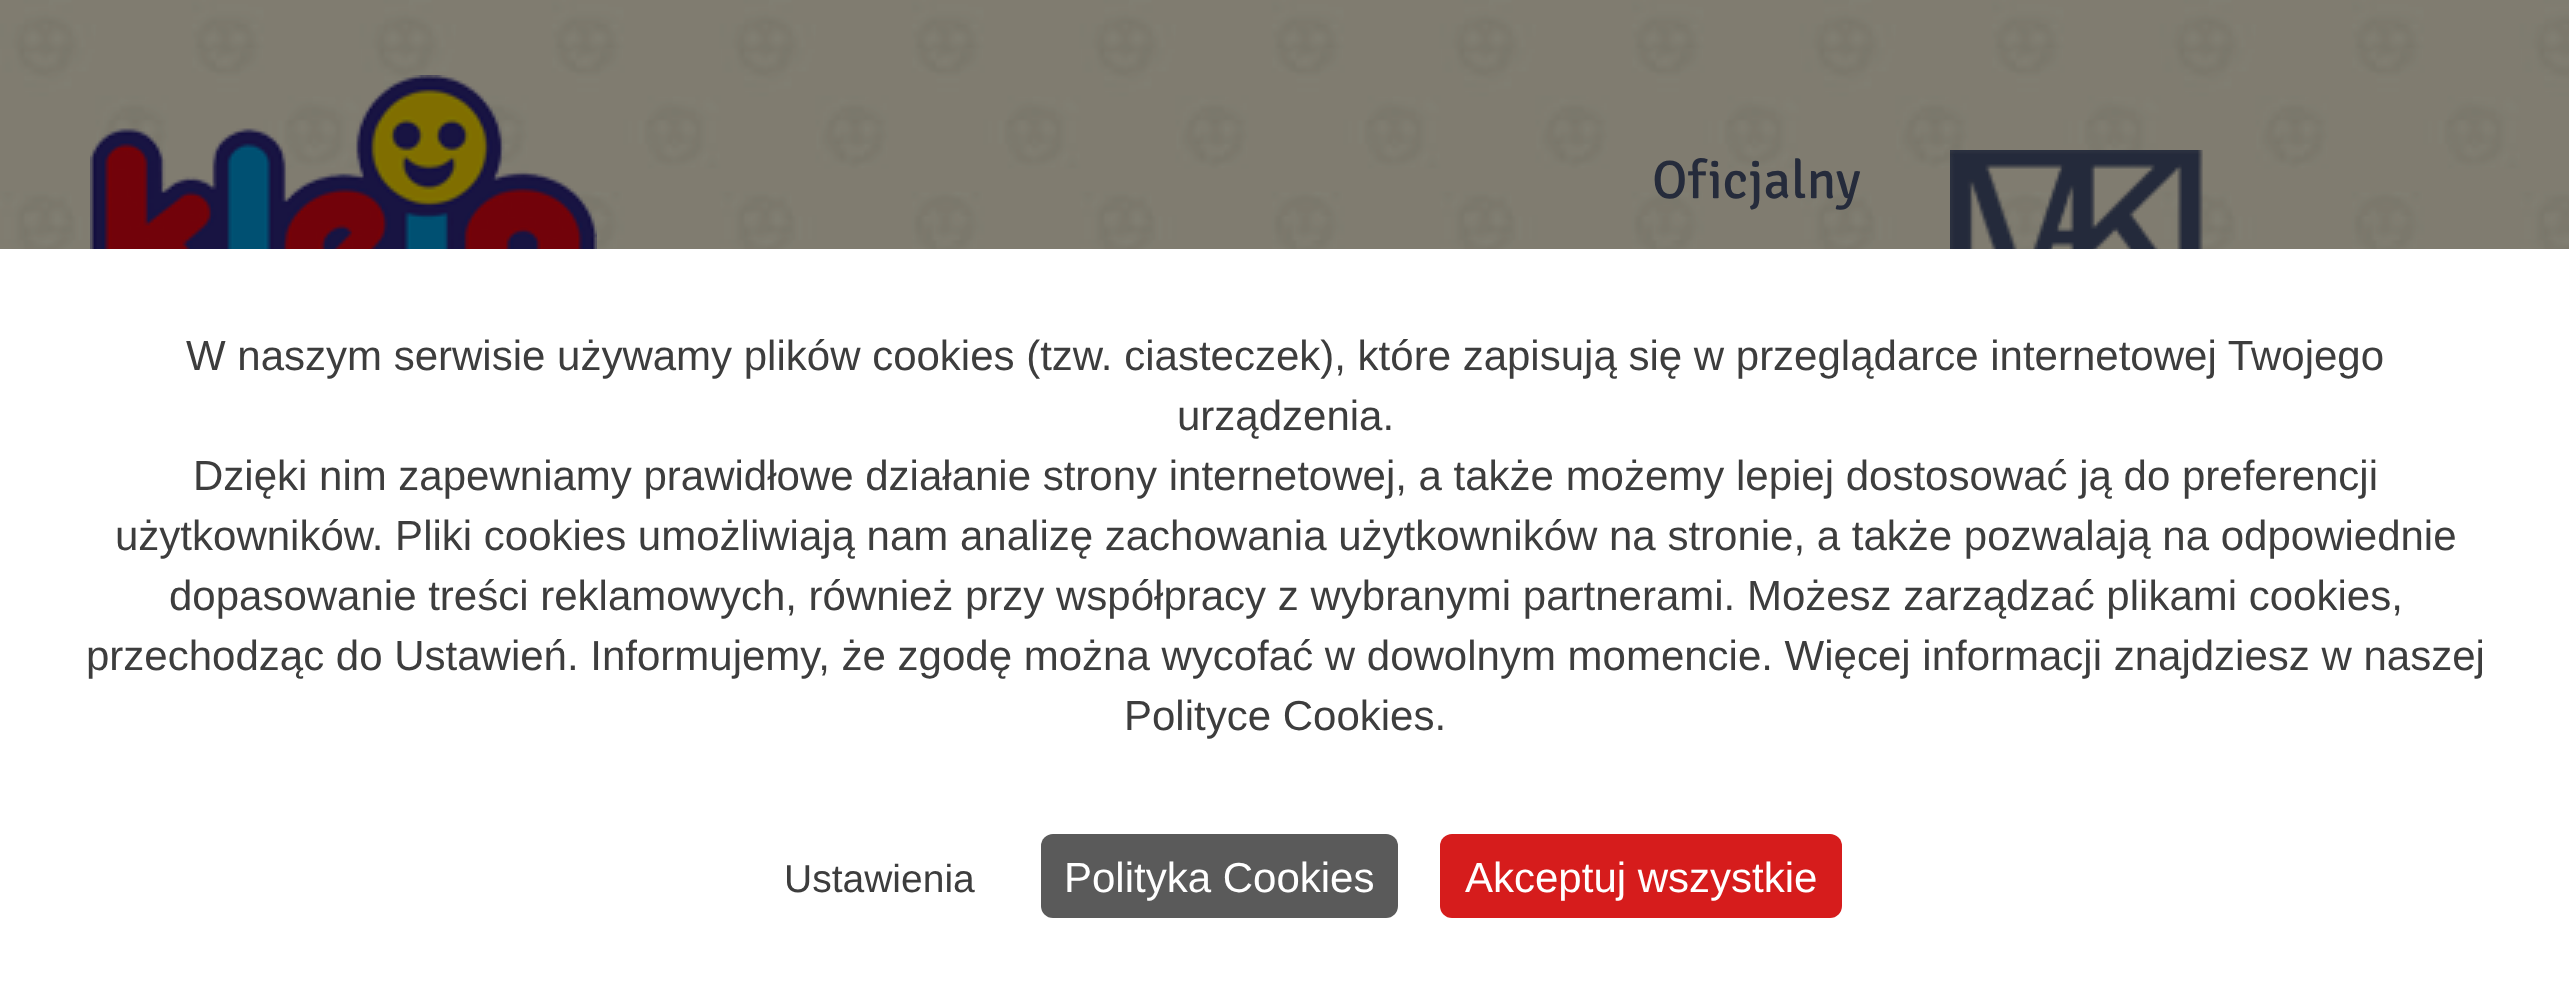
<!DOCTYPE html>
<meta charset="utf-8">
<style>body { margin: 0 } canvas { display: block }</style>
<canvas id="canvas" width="2569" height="981"></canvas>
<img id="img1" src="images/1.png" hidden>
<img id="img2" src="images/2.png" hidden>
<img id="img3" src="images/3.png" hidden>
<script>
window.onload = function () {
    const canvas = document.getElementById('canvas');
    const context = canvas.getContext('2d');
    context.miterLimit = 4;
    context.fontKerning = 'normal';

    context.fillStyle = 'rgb(255, 255, 255)';
    context.fillRect(0, 0, 2569, 981);
    context.drawImage(document.getElementById('img1'), 0, 0, 2569, 249);
    context.drawImage(document.getElementById('img2'), 90, 75, 507, 174);
    context.drawImage(document.getElementById('img3'), 1950, 150, 253, 99);
    context.fillStyle = 'rgb(90, 90, 90)';
    context.beginPath();
    context.roundRect(1041, 834, 357, 84, 12);
    context.fill();
    context.fillStyle = 'rgb(214, 28, 28)';
    context.beginPath();
    context.roundRect(1440, 834, 402, 84, 12);
    context.fill();
    context.font = '54px Signika';
    context.fillStyle = 'rgb(37, 43, 59)';
    context.fillText('Oficjalny', 1652, 198);
    context.font = '42px Liberation Sans';
    context.fillStyle = 'rgb(61, 61, 61)';
    context.fillText('W naszym serwisie używamy plików cookies (tzw. ciasteczek), które zapisują się w przeglądarce internetowej Twojego', 186, 370);
    context.fillText('urządzenia.', 1177, 430);
    context.fillText('Dzięki nim zapewniamy prawidłowe działanie strony internetowej, a także możemy lepiej dostosować ją do preferencji', 193, 490);
    context.fillText('użytkowników. Pliki cookies umożliwiają nam analizę zachowania użytkowników na stronie, a także pozwalają na odpowiednie', 115, 550);
    context.fillText('dopasowanie treści reklamowych, również przy współpracy z wybranymi partnerami. Możesz zarządzać plikami cookies,', 169, 610);
    context.fillText('przechodząc do Ustawień. Informujemy, że zgodę można wycofać w dowolnym momencie. Więcej informacji znajdziesz w naszej', 86, 670);
    context.fillText('Polityce Cookies.', 1124, 730);
    context.font = '39px Liberation Sans';
    context.fillText('Ustawienia', 784, 892);
    context.font = '42px Liberation Sans';
    context.fillStyle = 'rgb(255, 255, 255)';
    context.fillText('Polityka Cookies', 1064, 892);
    context.fillText('Akceptuj wszystkie', 1465, 892);
};
</script>
